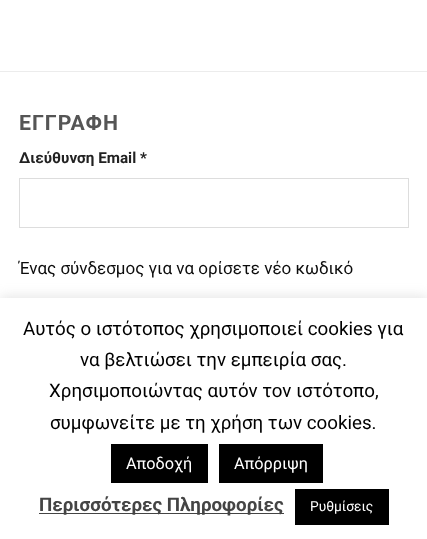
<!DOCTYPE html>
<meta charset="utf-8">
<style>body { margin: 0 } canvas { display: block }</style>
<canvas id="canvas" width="427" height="539"></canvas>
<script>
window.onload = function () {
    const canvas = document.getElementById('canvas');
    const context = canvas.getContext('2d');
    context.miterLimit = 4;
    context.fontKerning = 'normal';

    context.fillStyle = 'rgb(255, 255, 255)';
    context.fillRect(0, 0, 427, 539);
    context.fillStyle = 'rgb(236, 236, 236)';
    context.fillRect(0, 71, 427, 1);
    context.strokeStyle = 'rgb(221, 221, 221)';
    context.strokeRect(19.5, 178.5, 389, 49);
    context.fillStyle = 'rgba(172, 171, 171, 0.3)';
    context.filter = 'blur(6px)';
    context.beginPath();
    context.rect(0, 296, 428, 243);
    context.fill();
    context.filter = 'none';
    context.fillStyle = 'rgb(255, 255, 255)';
    context.fillRect(0, 298, 427, 241);
    context.fillStyle = 'rgb(0, 0, 0)';
    context.fillRect(111, 444, 97, 39);
    context.fillRect(219, 444, 104, 39);
    context.fillStyle = 'rgb(68, 68, 68)';
    context.fillRect(39, 513, 245, 1);
    context.fillStyle = 'rgb(0, 0, 0)';
    context.fillRect(295, 489, 94, 36);
    context.letterSpacing = '1px';
    context.font = 'bold 21.25px Roboto';
    context.fillStyle = 'rgb(85, 85, 85)';
    context.fillText('ΕΓΓΡΑΦΗ', 19, 130);
    context.letterSpacing = '0px';
    context.font = 'bold 15.25px Roboto';
    context.fillStyle = 'rgb(34, 34, 34)';
    context.fillText('Διεύθυνση Email *', 19, 163);
    context.font = '17px Roboto';
    context.fillStyle = 'rgb(12, 12, 12)';
    context.fillText('Ένας σύνδεσμος για να ορίσετε νέο κωδικό', 19, 274);
    context.font = '18.75px Roboto';
    context.fillStyle = 'rgb(0, 0, 0)';
    context.fillText('Αυτός ο ιστότοπος χρησιμοποιεί cookies για', 23, 335);
    context.fillText('να βελτιώσει την εμπειρία σας.', 80, 366);
    context.fillText('Χρησιμοποιώντας αυτόν τον ιστότοπο,', 49, 397);
    context.fillText('συμφωνείτε με τη χρήση των cookies.', 50, 429);
    context.font = '16.25px Roboto';
    context.fillStyle = 'rgb(255, 255, 255)';
    context.fillText('Αποδοχή', 126, 469);
    context.fillText('Απόρριψη', 234, 469);
    context.font = 'bold 18.75px Roboto';
    context.fillStyle = 'rgb(68, 68, 68)';
    context.fillText('Περισσότερες Πληροφορίες', 39, 511);
    context.font = '13.75px Roboto';
    context.fillStyle = 'rgb(255, 255, 255)';
    context.fillText('Ρυθμίσεις', 310, 511);
};
</script>
